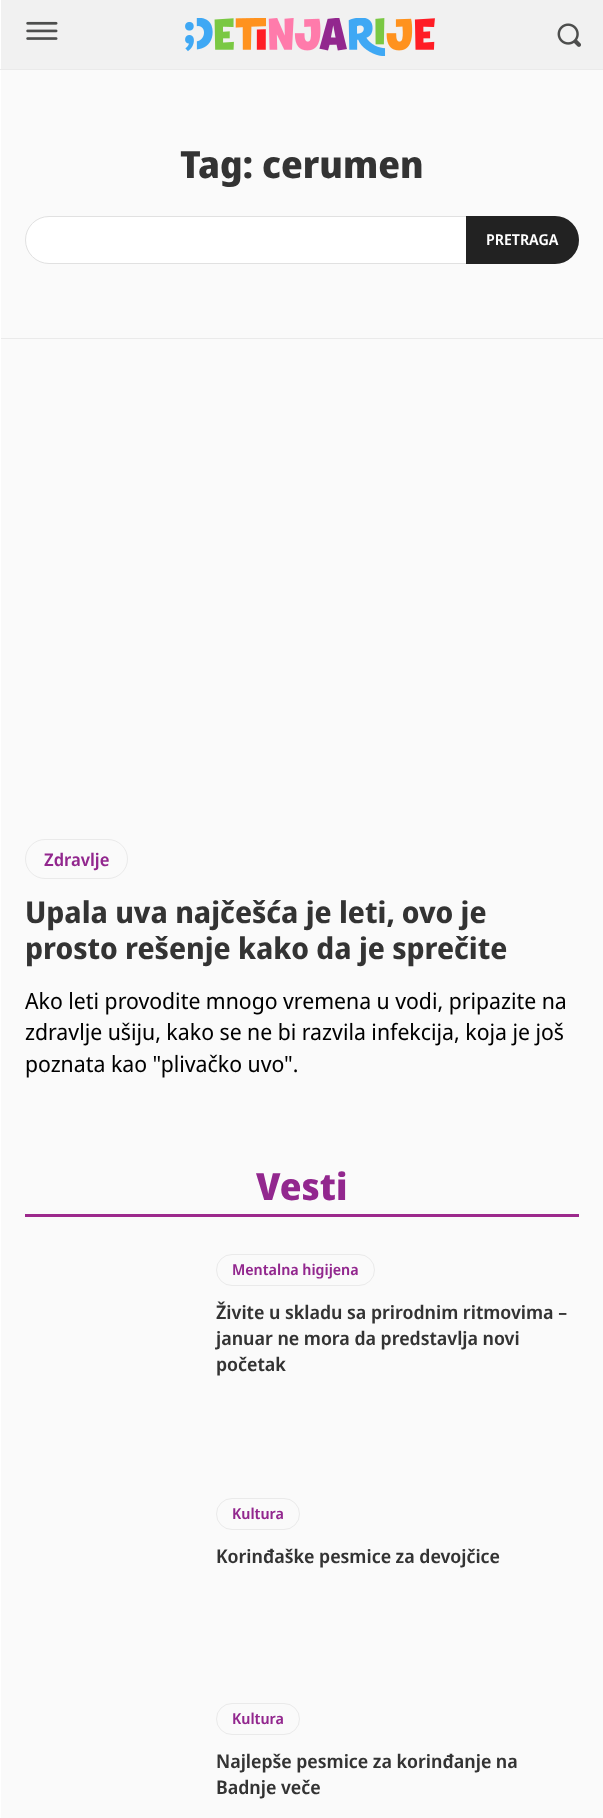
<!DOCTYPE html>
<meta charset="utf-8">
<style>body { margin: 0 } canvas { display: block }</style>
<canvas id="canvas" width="603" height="1818"></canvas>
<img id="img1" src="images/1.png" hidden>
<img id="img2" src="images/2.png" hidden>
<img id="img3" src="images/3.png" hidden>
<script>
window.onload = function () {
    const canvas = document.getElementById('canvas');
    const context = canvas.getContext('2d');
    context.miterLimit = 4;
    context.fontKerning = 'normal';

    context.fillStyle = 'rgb(255, 255, 255)';
    context.fillRect(0, 0, 603, 1818);
    context.fillStyle = 'rgb(234, 234, 234)';
    context.fillRect(0, 69, 603, 1);
    context.fillStyle = 'rgb(241, 241, 241)';
    context.fillRect(1, 0, 602, 69);
    context.drawImage(document.getElementById('img1'), 26, 21, 32, 19);
    context.drawImage(document.getElementById('img2'), 185, 18, 250, 38);
    context.drawImage(document.getElementById('img3'), 557, 23, 24, 24);
    context.fillStyle = 'rgb(250, 250, 250)';
    context.fillRect(1, 70, 602, 1748);
    context.fillStyle = 'rgb(255, 255, 255)';
    context.beginPath();
    context.roundRect(25.5, 216.5, 553, 47, 23.5);
    context.fill();
    context.strokeStyle = 'rgb(225, 225, 225)';
    context.stroke();
    context.fillStyle = 'rgb(34, 34, 34)';
    context.beginPath();
    context.roundRect(466, 216, 113, 48, [0, 24, 24, 0]);
    context.fill();
    context.fillStyle = 'rgb(234, 234, 234)';
    context.fillRect(1, 338, 602, 1);
    context.beginPath();
    context.roundRect(25.5, 839.5, 102, 39, 19.5);
    context.strokeStyle = 'rgb(234, 234, 234)';
    context.stroke();
    context.fillStyle = 'rgb(156, 41, 140)';
    context.fillRect(25, 1214, 554, 3);
    context.beginPath();
    context.roundRect(216.5, 1254.5, 158, 31, 15.5);
    context.stroke();
    context.beginPath();
    context.roundRect(216.5, 1498.5, 83, 31, 15.5);
    context.stroke();
    context.beginPath();
    context.roundRect(216.5, 1703.5, 83, 31, 15.5);
    context.stroke();
    context.font = '800 37.5px Noto Sans Display';
    context.fillStyle = 'rgb(51, 51, 51)';
    context.fillText('Tag: cerumen', 180, 178);
    context.font = '600 15px Noto Sans Display';
    context.fillStyle = 'rgb(255, 255, 255)';
    context.fillText('PRETRAGA', 486, 245);
    context.font = '600 17.5px Noto Sans Display';
    context.fillStyle = 'rgb(146, 39, 142)';
    context.fillText('Zdravlje', 44, 866);
    context.font = 'bold 30px Noto Sans Display';
    context.fillStyle = 'rgb(51, 51, 51)';
    context.fillText('Upala uva najčešća je leti, ovo je', 25, 923);
    context.fillText('prosto rešenje kako da je sprečite', 25, 959);
    context.font = '22.5px Noto Sans Display';
    context.fillStyle = 'rgb(0, 0, 0)';
    context.fillText('Ako leti provodite mnogo vremena u vodi, pripazite na', 25, 1009);
    context.fillText('zdravlje ušiju, kako se ne bi razvila infekcija, koja je još', 25, 1040);
    context.fillText('poznata kao "plivačko uvo".', 25, 1072);
    context.font = '800 37.5px Noto Sans Display';
    context.fillStyle = 'rgb(146, 39, 142)';
    context.fillText('Vesti', 256, 1200);
    context.font = '600 15px Noto Sans Display';
    context.fillText('Mentalna higijena', 232, 1275);
    context.font = '600 18.75px Noto Sans Display';
    context.fillStyle = 'rgb(51, 51, 51)';
    context.fillText('Živite u skladu sa prirodnim ritmovima –', 216, 1319);
    context.fillText('januar ne mora da predstavlja novi', 216, 1345);
    context.fillText('početak', 216, 1371);
    context.font = '600 15px Noto Sans Display';
    context.fillStyle = 'rgb(146, 39, 142)';
    context.fillText('Kultura', 232, 1519);
    context.font = '600 18.75px Noto Sans Display';
    context.fillStyle = 'rgb(51, 51, 51)';
    context.fillText('Korinđaške pesmice za devojčice', 216, 1563);
    context.font = '600 15px Noto Sans Display';
    context.fillStyle = 'rgb(146, 39, 142)';
    context.fillText('Kultura', 232, 1724);
    context.font = '600 18.75px Noto Sans Display';
    context.fillStyle = 'rgb(51, 51, 51)';
    context.fillText('Najlepše pesmice za korinđanje na', 216, 1768);
    context.fillText('Badnje veče', 216, 1794);
};
</script>
